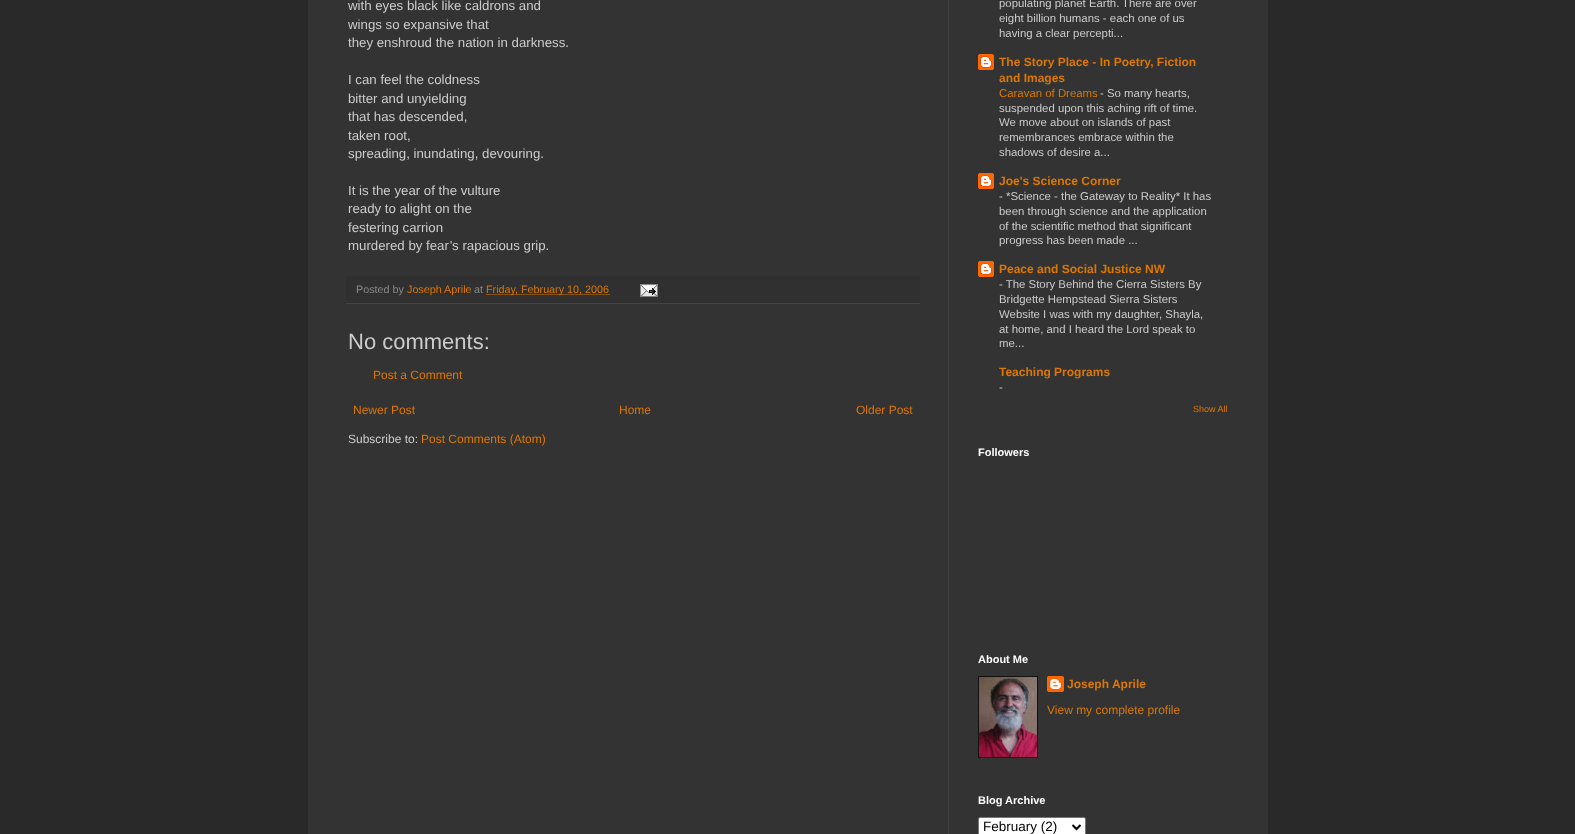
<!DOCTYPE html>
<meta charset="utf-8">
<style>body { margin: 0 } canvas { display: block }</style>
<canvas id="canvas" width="1575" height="834"></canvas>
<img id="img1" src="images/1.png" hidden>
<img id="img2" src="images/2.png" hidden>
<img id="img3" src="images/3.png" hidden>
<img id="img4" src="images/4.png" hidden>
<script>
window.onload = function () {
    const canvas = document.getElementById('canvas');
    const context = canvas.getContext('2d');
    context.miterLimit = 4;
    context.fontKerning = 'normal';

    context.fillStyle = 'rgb(41, 41, 41)';
    context.fillRect(0, 0, 1575, 834);
    context.fillStyle = 'rgb(51, 51, 51)';
    context.fillRect(308, 0, 960, 834);
    context.fillStyle = 'rgb(48, 48, 48)';
    context.fillRect(346, 276, 574, 27);
    context.fillStyle = 'rgb(68, 68, 68)';
    context.fillRect(346, 303, 574, 1);
    context.beginPath();
    context.moveTo(486.5, 294.5);
    context.lineTo(610, 294.5);
    context.strokeStyle = 'rgb(221, 119, 0)';
    context.setLineDash([1, 1]);
    context.stroke();
    context.drawImage(document.getElementById('img1'), 640, 284, 18, 13);
    context.drawImage(document.getElementById('img2'), 978, 54, 16, 16);
    context.drawImage(document.getElementById('img2'), 978, 173, 16, 16);
    context.drawImage(document.getElementById('img2'), 978, 261, 16, 16);
    context.fillStyle = 'rgb(17, 17, 17)';
    context.fillRect(978, 676, 60, 82);
    context.drawImage(document.getElementById('img3'), 979, 677, 58, 80);
    context.drawImage(document.getElementById('img4'), 1047, 676, 17, 16);
    context.fillStyle = 'rgb(255, 255, 255)';
    context.beginPath();
    context.roundRect(978.5, 817.5, 107, 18, 1.5);
    context.fill();
    context.strokeStyle = 'rgb(118, 118, 118)';
    context.setLineDash([]);
    context.stroke();
    context.beginPath();
    context.moveTo(1072.5, 825);
    context.lineTo(1076.5, 829);
    context.lineTo(1080.5, 825);
    context.strokeStyle = 'rgb(0, 0, 0)';
    context.lineWidth = 2;
    context.stroke();
    context.fillStyle = 'rgb(64, 64, 64)';
    context.fillRect(948, 0, 1, 834);
    context.font = '13.25px Liberation Sans';
    context.fillStyle = 'rgb(204, 204, 204)';
    context.fillText('with eyes black like caldrons and', 348, 10);
    context.fillText('wings so expansive that', 348, 29);
    context.fillText('they enshroud the nation in darkness.', 348, 47);
    context.fillText('I can feel the coldness', 348, 84);
    context.fillText('bitter and unyielding', 348, 103);
    context.fillText('that has descended,', 348, 121);
    context.fillText('taken root,', 348, 140);
    context.fillText('spreading, inundating, devouring.', 348, 158);
    context.fillText('It is the year of the vulture', 348, 195);
    context.fillText('ready to alight on the', 348, 213);
    context.fillText('festering carrion', 348, 232);
    context.fillText('murdered by fear’s rapacious grip.', 348, 250);
    context.font = '10.75px Liberation Sans';
    context.fillStyle = 'rgb(136, 136, 136)';
    context.fillText('Posted by', 356, 293);
    context.fillStyle = 'rgb(221, 119, 0)';
    context.fillText('Joseph Aprile', 407, 293);
    context.fillStyle = 'rgb(136, 136, 136)';
    context.fillText('at', 474, 293);
    context.fillStyle = 'rgb(221, 119, 0)';
    context.fillText('Friday, February 10, 2006', 486, 293);
    context.font = '22px Liberation Sans';
    context.fillStyle = 'rgb(204, 204, 204)';
    context.fillText('No comments:', 348, 349);
    context.font = '12px Liberation Sans';
    context.fillStyle = 'rgb(221, 119, 0)';
    context.fillText('Post a Comment', 373, 379);
    context.fillText('Newer Post', 353, 414);
    context.fillText('Home', 619, 414);
    context.fillText('Older Post', 856, 414);
    context.fillStyle = 'rgb(204, 204, 204)';
    context.fillText('Subscribe to:', 348, 443);
    context.fillStyle = 'rgb(221, 119, 0)';
    context.fillText('Post Comments (Atom)', 421, 443);
    context.font = '11.4px Liberation Sans';
    context.fillStyle = 'rgb(204, 204, 204)';
    context.fillText('populating planet Earth.', 999, 7);
    context.fillText('There are over', 1122, 7);
    context.fillText('eight billion humans - each one of us', 999, 22);
    context.fillText('having a clear percepti...', 999, 37);
    context.font = 'bold 12px Liberation Sans';
    context.fillStyle = 'rgb(221, 119, 0)';
    context.fillText('The Story Place - In Poetry, Fiction', 999, 66);
    context.fillText('and Images', 999, 82);
    context.font = '11.4px Liberation Sans';
    context.fillText('Caravan of Dreams', 999, 97);
    context.fillStyle = 'rgb(204, 204, 204)';
    context.fillText('- So many hearts,', 1100, 97);
    context.fillText('suspended upon this aching rift of time.', 999, 112);
    context.fillText('We move about on islands of past', 999, 126);
    context.fillText('remembrances embrace within the', 999, 141);
    context.fillText('shadows of desire a...', 999, 156);
    context.font = 'bold 12px Liberation Sans';
    context.fillStyle = 'rgb(221, 119, 0)';
    context.fillText('Joe\'s Science Corner', 999, 185);
    context.font = '11.4px Liberation Sans';
    context.fillStyle = 'rgb(204, 204, 204)';
    context.fillText('- *Science - the Gateway to Reality* It has', 999, 200);
    context.fillText('been through science and the application', 999, 215);
    context.fillText('of the scientific method that significant', 999, 230);
    context.fillText('progress has been made ...', 999, 244);
    context.font = 'bold 12px Liberation Sans';
    context.fillStyle = 'rgb(221, 119, 0)';
    context.fillText('Peace and Social Justice NW', 999, 273);
    context.font = '11.4px Liberation Sans';
    context.fillStyle = 'rgb(204, 204, 204)';
    context.fillText('- The Story Behind the Cierra Sisters By', 999, 288);
    context.fillText('Bridgette Hempstead Sierra Sisters', 999, 303);
    context.fillText('Website I was with my daughter, Shayla,', 999, 318);
    context.fillText('at home, and I heard the Lord speak to', 999, 333);
    context.fillText('me...', 999, 347);
    context.font = 'bold 12px Liberation Sans';
    context.fillStyle = 'rgb(221, 119, 0)';
    context.fillText('Teaching Programs', 999, 376);
    context.font = '11.4px Liberation Sans';
    context.fillStyle = 'rgb(204, 204, 204)';
    context.fillText('-', 999, 391);
    context.font = '9px Liberation Sans';
    context.fillStyle = 'rgb(221, 119, 0)';
    context.fillText('Show All', 1193, 412);
    context.font = 'bold 11px Liberation Sans';
    context.fillStyle = 'rgb(255, 255, 255)';
    context.fillText('Followers', 978, 456);
    context.fillText('About Me', 978, 663);
    context.font = 'bold 12px Liberation Sans';
    context.fillStyle = 'rgb(221, 119, 0)';
    context.fillText('Joseph Aprile', 1067, 688);
    context.font = '12px Liberation Sans';
    context.fillText('View my complete profile', 1047, 714);
    context.font = 'bold 11px Liberation Sans';
    context.fillStyle = 'rgb(255, 255, 255)';
    context.fillText('Blog Archive', 978, 804);
    context.font = '13.5px Liberation Sans';
    context.fillStyle = 'rgb(0, 0, 0)';
    context.fillText('February (2)', 983, 831);
};
</script>
